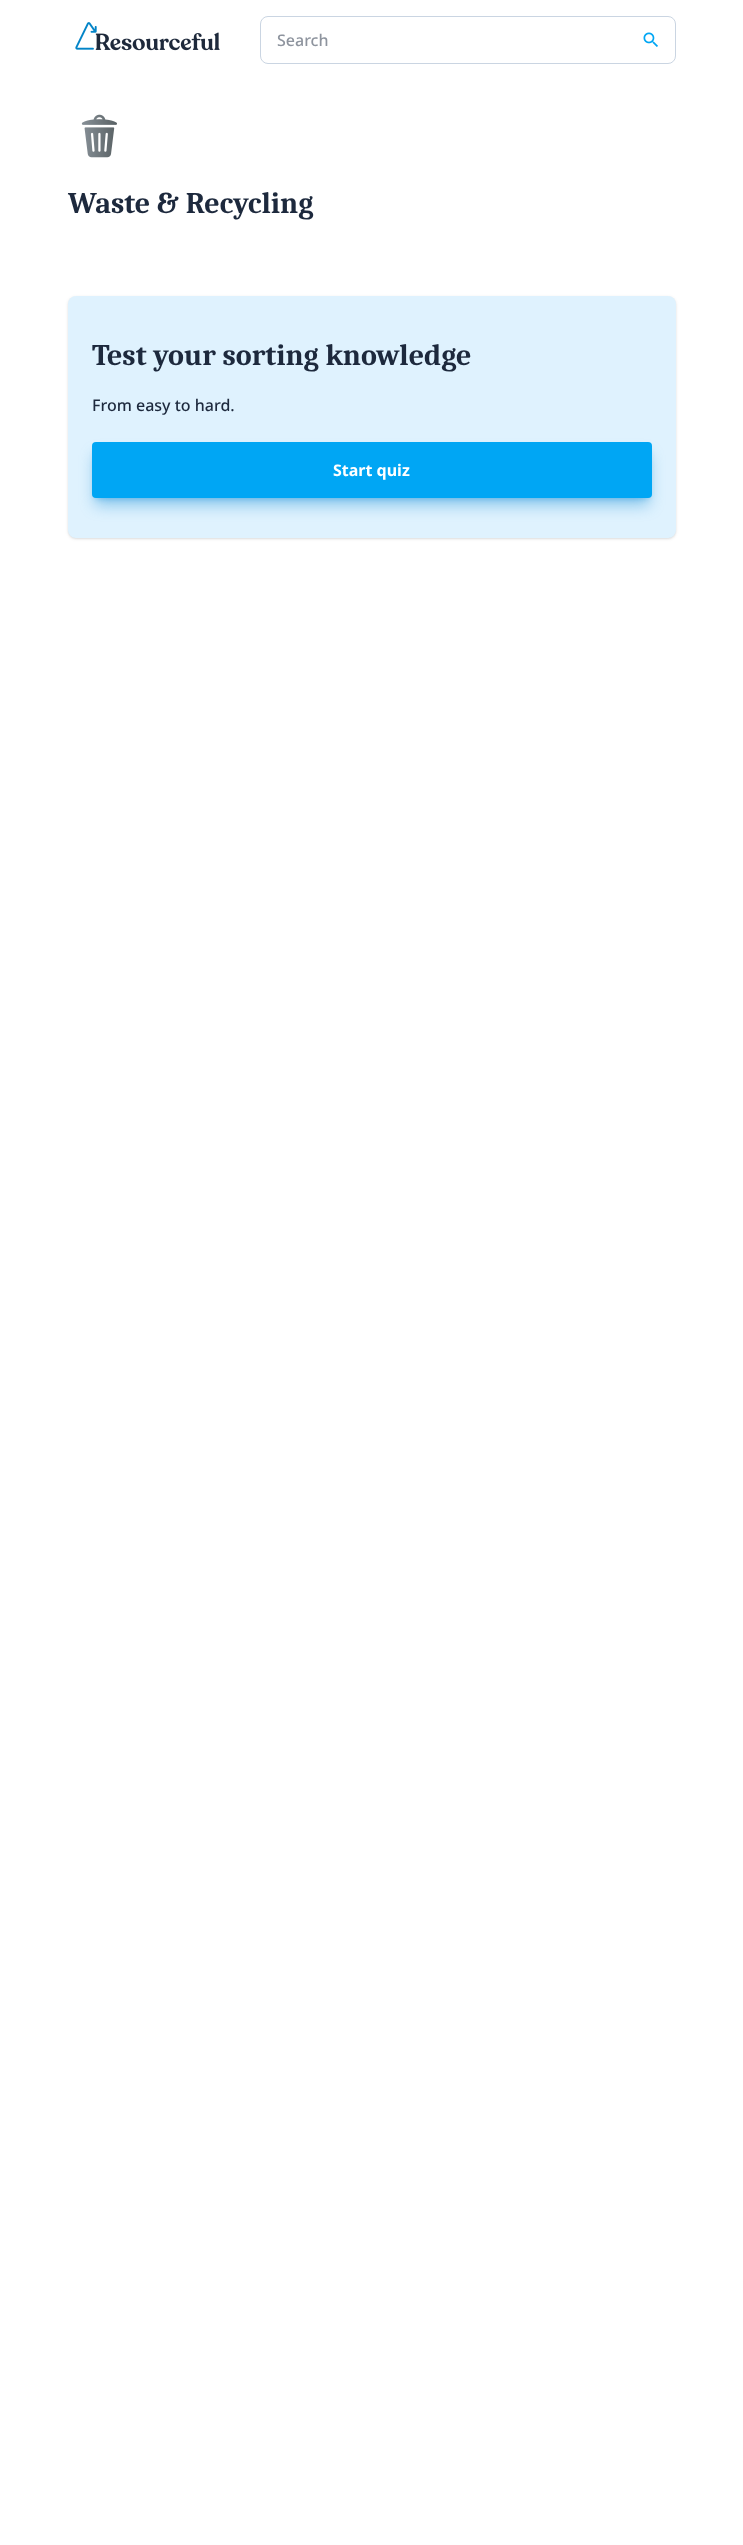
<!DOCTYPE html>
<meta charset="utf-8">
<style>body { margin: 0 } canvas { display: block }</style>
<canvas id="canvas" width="743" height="2545"></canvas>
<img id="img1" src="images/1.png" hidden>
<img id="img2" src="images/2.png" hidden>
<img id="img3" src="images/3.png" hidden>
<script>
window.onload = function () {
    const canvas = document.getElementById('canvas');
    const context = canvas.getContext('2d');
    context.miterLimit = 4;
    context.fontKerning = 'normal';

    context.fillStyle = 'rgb(255, 255, 255)';
    context.fillRect(0, 0, 743, 2545);
    context.drawImage(document.getElementById('img1'), 75, 22, 145, 29);
    context.beginPath();
    context.roundRect(260.5, 16.5, 415, 47, 7.5);
    context.strokeStyle = 'rgb(202, 213, 226)';
    context.stroke();
    context.drawImage(document.getElementById('img2'), 643, 32, 15, 15);
    context.drawImage(document.getElementById('img3'), 81, 114, 36, 44);
    context.fillStyle = 'rgba(0, 0, 0, 0.1)';
    context.filter = 'blur(1px)';
    context.beginPath();
    context.roundRect(69, 298, 606, 240, 7);
    context.fill();
    context.filter = 'none';
    context.filter = 'blur(1.5px)';
    context.beginPath();
    context.roundRect(68, 297, 608, 242, 8);
    context.fill();
    context.filter = 'none';
    context.fillStyle = 'rgb(223, 242, 254)';
    context.beginPath();
    context.roundRect(68, 296, 608, 242, 8);
    context.fill();
    context.fillStyle = 'rgba(0, 132, 209, 0.4)';
    context.filter = 'blur(3px)';
    context.beginPath();
    context.rect(96, 450, 552, 48);
    context.fill();
    context.filter = 'none';
    context.filter = 'blur(7.5px)';
    context.beginPath();
    context.roundRect(95, 455, 554, 50, 1);
    context.fill();
    context.filter = 'none';
    context.fillStyle = 'rgb(0, 166, 244)';
    context.beginPath();
    context.roundRect(92, 442, 560, 56, 4);
    context.fill();
    context.font = '500 16px Noto Sans';
    context.fillStyle = 'rgb(142, 148, 158)';
    context.fillText('Search', 277, 46);
    context.font = 'bold 30px Caladea';
    context.fillStyle = 'rgb(29, 41, 61)';
    context.fillText('Waste & Recycling', 68, 213);
    context.fillText('Test your sorting knowledge', 92, 365);
    context.font = '500 16px Noto Sans';
    context.fillText('From easy to hard.', 92, 411);
    context.font = 'bold 16px Noto Sans';
    context.fillStyle = 'rgb(255, 255, 255)';
    context.fillText('Start quiz', 333, 476);
};
</script>
